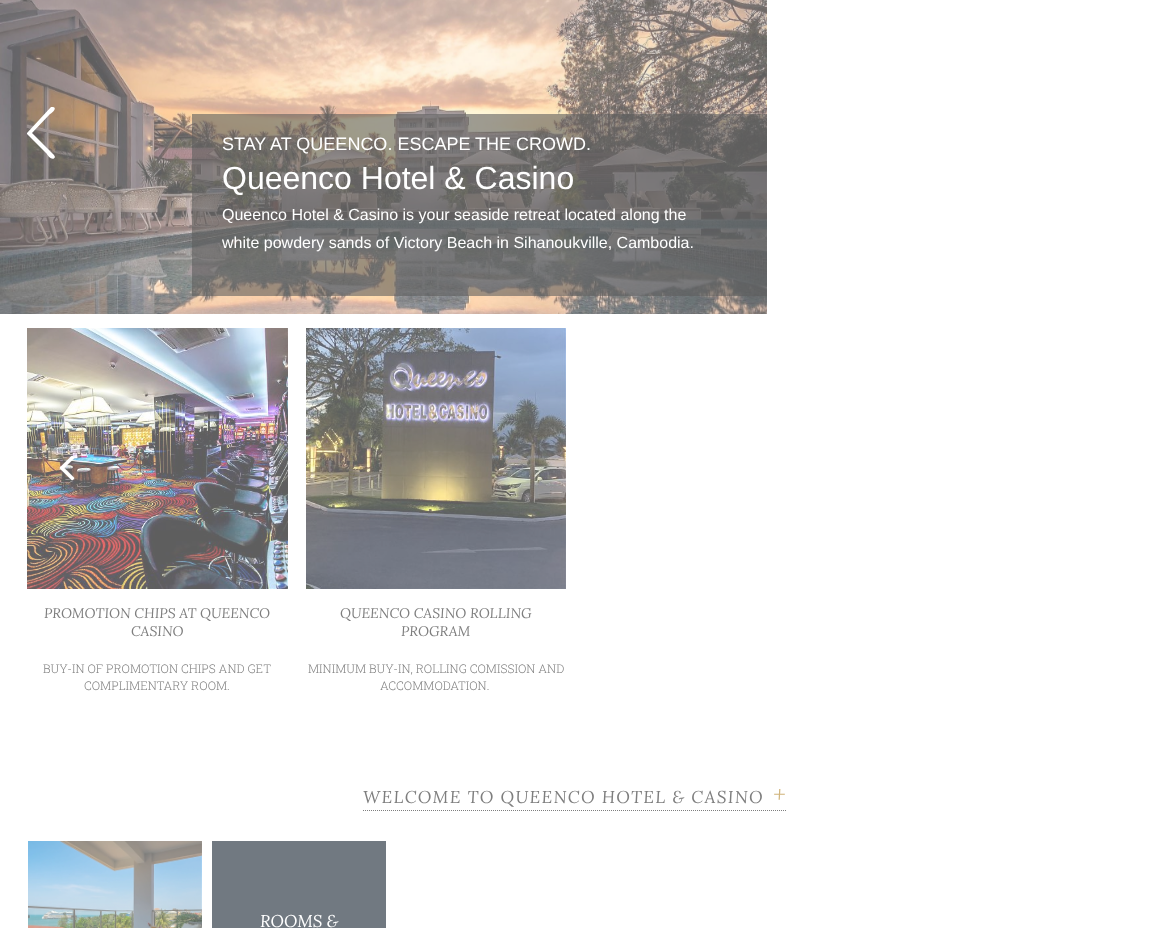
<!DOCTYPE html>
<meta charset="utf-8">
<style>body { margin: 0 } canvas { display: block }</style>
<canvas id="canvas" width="1150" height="928"></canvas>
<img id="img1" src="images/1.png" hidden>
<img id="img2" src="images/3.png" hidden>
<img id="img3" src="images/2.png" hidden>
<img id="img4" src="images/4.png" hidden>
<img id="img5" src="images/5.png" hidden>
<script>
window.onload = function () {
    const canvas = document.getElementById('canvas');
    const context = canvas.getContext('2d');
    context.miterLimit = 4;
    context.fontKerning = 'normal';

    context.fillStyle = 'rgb(255, 255, 255)';
    context.fillRect(0, 0, 1150, 928);
    context.drawImage(document.getElementById('img1'), 0, 0, 767, 314);
    context.beginPath();
    context.moveTo(54, 155);
    context.lineTo(55, 157);
    context.bezierCurveTo(53, 162, 47, 155, 47, 154);
    context.lineTo(27, 134);
    context.lineTo(27, 133);
    context.lineTo(51, 107);
    context.lineTo(53, 107);
    context.bezierCurveTo(58, 108, 51, 114, 50, 114);
    context.lineTo(32, 133);
    context.closePath();
    context.fill();
    context.fillStyle = 'rgba(94, 94, 94, 0.6)';
    context.fillRect(192, 114, 575, 182);
    context.drawImage(document.getElementById('img2'), 27, 328, 261, 261);
    context.drawImage(document.getElementById('img3'), 59, 455, 16, 26);
    context.drawImage(document.getElementById('img4'), 306, 328, 260, 261);
    context.beginPath();
    context.moveTo(363, 810.5);
    context.lineTo(787, 810.5);
    context.strokeStyle = 'rgb(126, 126, 126)';
    context.setLineDash([1, 1]);
    context.stroke();
    context.drawImage(document.getElementById('img5'), 28, 841, 174, 87);
    context.fillStyle = 'rgb(113, 121, 129)';
    context.fillRect(212, 841, 174, 87);
    context.font = '18px Liberation Sans';
    context.fillStyle = 'rgb(255, 255, 255)';
    context.fillText('STAY AT QUEENCO. ESCAPE THE CROWD.', 222, 150);
    context.font = '32px Liberation Sans';
    context.fillText('Queenco Hotel & Casino', 222, 189);
    context.font = '16px Liberation Sans';
    context.fillText('Queenco Hotel & Casino is your seaside retreat located along the', 222, 220);
    context.fillText('white powdery sands of Victory Beach in Sihanoukville, Cambodia.', 222, 248);
    context.font = 'italic 14px Lora';
    context.fillStyle = 'rgb(126, 126, 126)';
    context.fillText('PROMOTION CHIPS AT QUEENCO', 44, 618);
    context.fillText('CASINO', 131, 636);
    context.font = '300 12px Roboto Slab';
    context.fillText('BUY-IN OF PROMOTION CHIPS AND GET', 43, 673);
    context.fillText('COMPLIMENTARY ROOM.', 84, 690);
    context.font = 'italic 14px Lora';
    context.fillText('QUEENCO CASINO ROLLING', 340, 618);
    context.fillText('PROGRAM', 401, 636);
    context.font = '300 12px Roboto Slab';
    context.fillText('MINIMUM BUY-IN, ROLLING COMISSION AND', 308, 673);
    context.fillText('ACCOMMODATION.', 380, 690);
    context.letterSpacing = '1.3px';
    context.font = 'italic 17.25px Lora';
    context.fillText('WELCOME TO QUEENCO HOTEL & CASINO', 363, 803);
    context.font = 'italic 24px Lora';
    context.fillStyle = 'rgb(209, 181, 125)';
    context.fillText('+', 773, 803);
    context.letterSpacing = '0px';
    context.font = 'italic 17px Lora';
    context.fillStyle = 'rgb(255, 255, 255)';
    context.fillText('ROOMS &', 260, 927);
};
</script>
